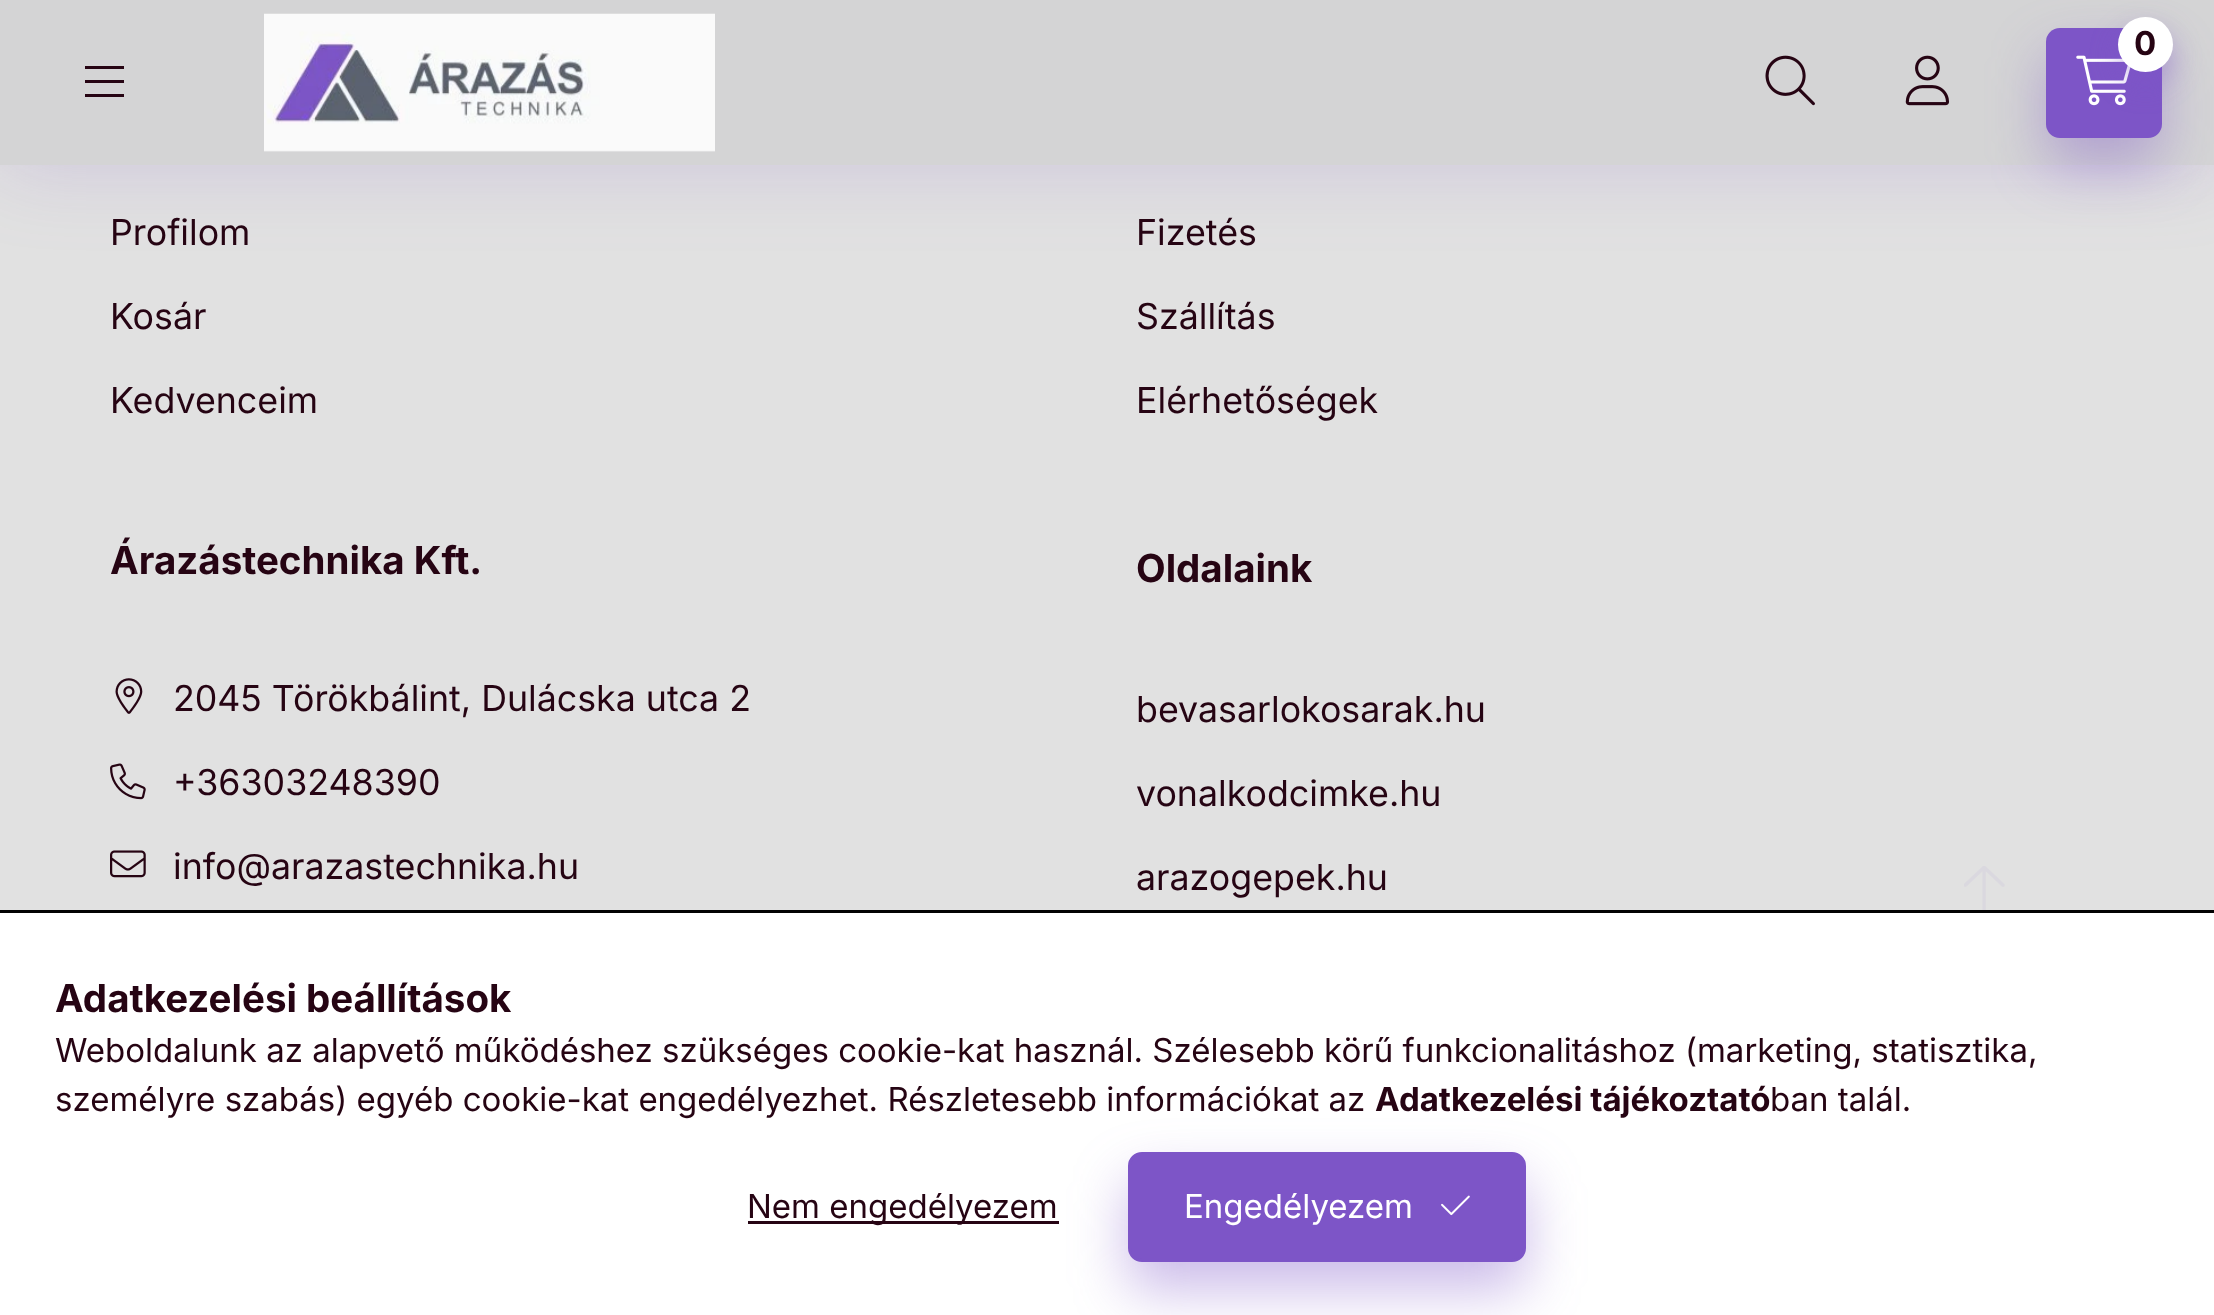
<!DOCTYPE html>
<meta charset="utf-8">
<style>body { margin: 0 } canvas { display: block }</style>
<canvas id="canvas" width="2214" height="1315"></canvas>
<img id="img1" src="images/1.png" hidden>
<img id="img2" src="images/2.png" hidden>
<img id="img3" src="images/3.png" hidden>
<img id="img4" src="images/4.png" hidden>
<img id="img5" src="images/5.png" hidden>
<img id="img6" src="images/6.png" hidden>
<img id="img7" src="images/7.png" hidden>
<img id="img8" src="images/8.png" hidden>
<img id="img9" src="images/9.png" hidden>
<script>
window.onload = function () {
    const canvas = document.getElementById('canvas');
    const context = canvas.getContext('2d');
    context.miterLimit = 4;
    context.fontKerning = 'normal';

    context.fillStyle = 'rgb(225, 225, 225)';
    context.fillRect(0, 0, 2214, 1315);
    context.fillStyle = 'rgba(125, 85, 199, 0.2)';
    context.filter = 'blur(41px)';
    context.beginPath();
    context.rect(0, 0, 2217, 165);
    context.fill();
    context.filter = 'none';
    context.fillStyle = 'rgb(212, 212, 213)';
    context.fillRect(0, 0, 2214, 165);
    context.fillStyle = 'rgb(38, 4, 19)';
    context.fillRect(85, 66, 39, 3);
    context.fillRect(85, 80, 39, 3);
    context.fillRect(85, 94, 39, 3);
    context.drawImage(document.getElementById('img1'), 264, 13, 451, 139);
    context.fillStyle = 'rgba(125, 85, 199, 0.4)';
    context.filter = 'blur(27.5px)';
    context.beginPath();
    context.roundRect(2046, 55, 116, 110, 14);
    context.fill();
    context.filter = 'none';
    context.fillStyle = 'rgb(125, 85, 199)';
    context.beginPath();
    context.roundRect(2046, 28, 116, 110, 14);
    context.fill();
    context.drawImage(document.getElementById('img2'), 2076, 55, 55, 51);
    context.fillStyle = 'rgba(125, 85, 199, 0.4)';
    context.filter = 'blur(14px)';
    context.beginPath();
    context.roundRect(2118, 30, 55, 55, 27.5);
    context.fill();
    context.filter = 'none';
    context.fillStyle = 'rgb(255, 255, 255)';
    context.beginPath();
    context.arc(2145.5, 44.5, 27.5, 0, 2 * Math.PI);
    context.fill();
    context.drawImage(document.getElementById('img3'), 1765, 55, 50, 51);
    context.drawImage(document.getElementById('img4'), 1905, 55, 45, 51);
    context.drawImage(document.getElementById('img5'), 115, 678, 28, 36);
    context.drawImage(document.getElementById('img6'), 110, 763, 36, 37);
    context.drawImage(document.getElementById('img7'), 110, 850, 36, 28);
    context.drawImage(document.getElementById('img8'), 1964, 866, 41, 44);
    context.fillRect(0, 913, 2214, 402);
    context.fillStyle = 'rgb(2, 2, 2)';
    context.fillRect(0, 910, 2214, 3);
    context.fillStyle = 'rgb(38, 4, 19)';
    context.fillRect(748, 1221, 311, 3);
    context.fillStyle = 'rgba(125, 85, 199, 0.4)';
    context.filter = 'blur(27.5px)';
    context.beginPath();
    context.roundRect(1128, 1180, 398, 110, 14);
    context.fill();
    context.filter = 'none';
    context.fillStyle = 'rgb(125, 85, 199)';
    context.beginPath();
    context.roundRect(1129.5, 1153.5, 395, 107, 12.5);
    context.fill();
    context.strokeStyle = 'rgb(125, 85, 199)';
    context.lineWidth = 3;
    context.stroke();
    context.drawImage(document.getElementById('img9'), 1441, 1195, 29, 21);
    context.font = 'bold 33px Inter';
    context.fillStyle = 'rgb(38, 4, 19)';
    context.fillText('0', 2134, 55);
    context.font = '35.75px Inter';
    context.fillText('Profilom', 110, 245);
    context.fillText('Kosár', 110, 329);
    context.fillText('Kedvenceim', 110, 413);
    context.fillText('Fizetés', 1136, 245);
    context.fillText('Szállítás', 1136, 329);
    context.fillText('Elérhetőségek', 1136, 413);
    context.font = 'bold 38.5px Inter';
    context.fillText('Árazástechnika Kft.', 110, 574);
    context.font = '35.75px Inter';
    context.fillText('2045 Törökbálint, Dulácska utca 2', 173, 711);
    context.fillText('+36303248390', 173, 795);
    context.fillText('info@arazastechnika.hu', 173, 879);
    context.font = 'bold 38.5px Inter';
    context.fillText('Oldalaink', 1136, 582);
    context.font = '35.75px Inter';
    context.fillText('bevasarlokosarak.hu', 1136, 722);
    context.fillText('vonalkodcimke.hu', 1136, 806);
    context.fillText('arazogepek.hu', 1136, 890);
    context.font = 'bold 38.5px Inter';
    context.fillText('Adatkezelési beállítások', 55, 1012);
    context.font = '33px Inter';
    context.fillText('Weboldalunk az alapvető működéshez szükséges cookie-kat használ. Szélesebb körű funkcionalitáshoz (marketing, statisztika,', 55, 1062);
    context.fillText('személyre szabás) egyéb cookie-kat engedélyezhet. Részletesebb információkat az', 55, 1111);
    context.font = 'bold 33px Inter';
    context.fillText('Adatkezelési tájékoztató', 1375, 1111);
    context.font = '33px Inter';
    context.fillText('ban talál.', 1770, 1111);
    context.fillText('Nem engedélyezem', 747, 1218);
    context.fillStyle = 'rgb(255, 255, 255)';
    context.fillText('Engedélyezem', 1184, 1218);
};
</script>
